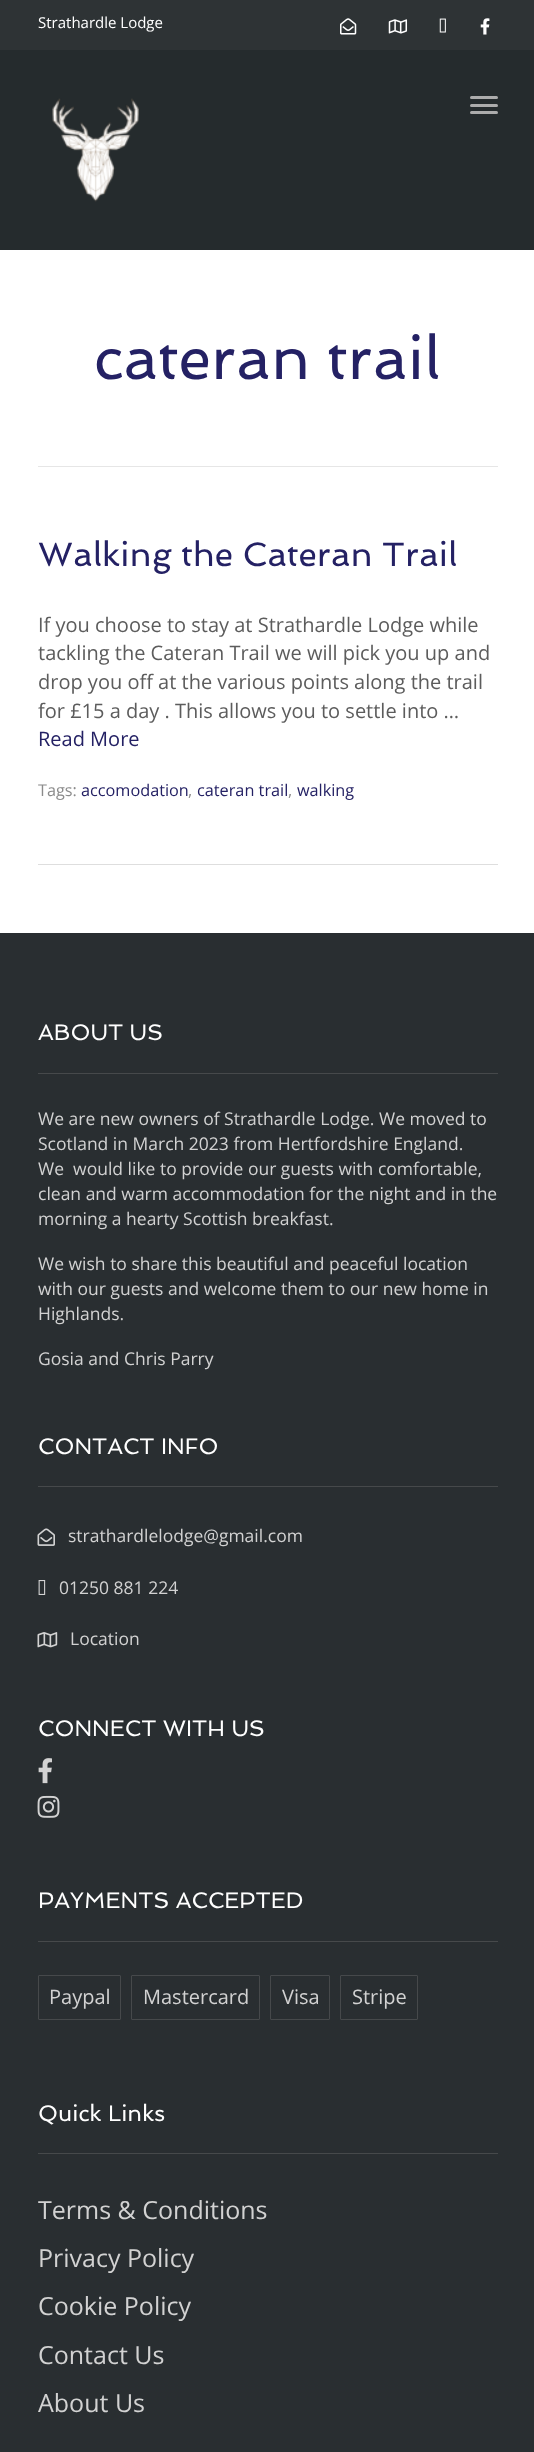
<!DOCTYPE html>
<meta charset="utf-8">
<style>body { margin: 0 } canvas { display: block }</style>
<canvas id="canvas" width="534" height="2452"></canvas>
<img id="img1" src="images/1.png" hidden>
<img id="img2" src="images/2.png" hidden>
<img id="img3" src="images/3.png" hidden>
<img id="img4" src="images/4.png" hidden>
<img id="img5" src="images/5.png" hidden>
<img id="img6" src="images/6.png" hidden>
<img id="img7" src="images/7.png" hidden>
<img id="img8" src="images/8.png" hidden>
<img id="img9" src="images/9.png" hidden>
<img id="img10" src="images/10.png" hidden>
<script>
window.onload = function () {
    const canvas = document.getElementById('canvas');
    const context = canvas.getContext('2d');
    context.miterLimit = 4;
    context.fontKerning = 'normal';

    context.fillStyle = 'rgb(255, 255, 255)';
    context.fillRect(0, 0, 534, 2452);
    context.fillStyle = 'rgb(37, 43, 45)';
    context.fillRect(0, 50, 534, 200);
    context.fillStyle = 'rgb(46, 51, 53)';
    context.fillRect(0, 0, 534, 50);
    context.drawImage(document.getElementById('img1'), 340, 18, 17, 17);
    context.drawImage(document.getElementById('img2'), 388, 19, 20, 15);
    context.drawImage(document.getElementById('img3'), 439, 18, 7, 15);
    context.drawImage(document.getElementById('img4'), 480, 18, 10, 17);
    context.drawImage(document.getElementById('img5'), 52, 98, 87, 104);
    context.fillStyle = 'rgb(172, 172, 172)';
    context.beginPath();
    context.roundRect(470, 96, 28, 3, 1.5);
    context.fill();
    context.beginPath();
    context.roundRect(470, 104, 28, 3, 1.5);
    context.fill();
    context.beginPath();
    context.roundRect(470, 111, 28, 3, 1.5);
    context.fill();
    context.fillStyle = 'rgb(230, 230, 230)';
    context.fillRect(38, 466, 460, 1);
    context.fillStyle = 'rgb(222, 222, 222)';
    context.fillRect(38, 864, 460, 1);
    context.fillStyle = 'rgb(41, 46, 49)';
    context.fillRect(0, 933, 534, 1519);
    context.fillStyle = 'rgb(70, 73, 75)';
    context.fillRect(38, 1073, 460, 1);
    context.fillRect(38, 1486, 460, 1);
    context.drawImage(document.getElementById('img6'), 37, 1528, 18, 18);
    context.drawImage(document.getElementById('img7'), 38, 1580, 8, 15);
    context.drawImage(document.getElementById('img8'), 37, 1632, 21, 16);
    context.drawImage(document.getElementById('img9'), 38, 1758, 14, 26);
    context.drawImage(document.getElementById('img10'), 37, 1795, 23, 23);
    context.fillRect(38, 1941, 460, 1);
    context.beginPath();
    context.roundRect(38.5, 1975.5, 82, 44, 0.5);
    context.strokeStyle = 'rgb(70, 73, 75)';
    context.stroke();
    context.beginPath();
    context.roundRect(131.5, 1975.5, 128, 44, 0.5);
    context.stroke();
    context.beginPath();
    context.roundRect(270.5, 1975.5, 59, 44, 0.5);
    context.stroke();
    context.beginPath();
    context.roundRect(340.5, 1975.5, 77, 44, 0.5);
    context.stroke();
    context.fillRect(38, 2153, 460, 1);
    context.font = '15px Open Sans';
    context.fillStyle = 'rgb(255, 255, 255)';
    context.fillText('Strathardle Lodge', 38, 28);
    context.font = '60px Spinnaker';
    context.fillStyle = 'rgb(36, 33, 100)';
    context.fillText('cateran trail', 94, 379);
    context.font = '33.75px Spinnaker';
    context.fillText('Walking the Cateran Trail', 38, 566);
    context.font = '20px Open Sans';
    context.fillStyle = 'rgb(92, 92, 92)';
    context.fillText('If you choose to stay at Strathardle Lodge while', 38, 632);
    context.fillText('tackling the Cateran Trail we will pick you up and', 38, 660);
    context.fillText('drop you off at the various points along the trail', 38, 689);
    context.fillText('for £15 a day . This allows you to settle into …', 38, 718);
    context.fillStyle = 'rgb(36, 33, 100)';
    context.fillText('Read More', 38, 746);
    context.font = '16.25px Open Sans';
    context.fillStyle = 'rgb(139, 139, 139)';
    context.fillText('Tags:', 38, 796);
    context.fillStyle = 'rgb(36, 33, 100)';
    context.fillText('accomodation', 81, 796);
    context.fillStyle = 'rgb(139, 139, 139)';
    context.fillText(',', 188, 796);
    context.fillStyle = 'rgb(36, 33, 100)';
    context.fillText('cateran trail', 197, 796);
    context.fillStyle = 'rgb(139, 139, 139)';
    context.fillText(',', 288, 796);
    context.fillStyle = 'rgb(36, 33, 100)';
    context.fillText('walking', 297, 796);
    context.font = '22.5px Spinnaker';
    context.fillStyle = 'rgb(255, 255, 255)';
    context.fillText('ABOUT US', 38, 1040);
    context.font = '17.5px Open Sans';
    context.fillStyle = 'rgb(210, 210, 210)';
    context.fillText('We are new owners of Strathardle Lodge. We moved to', 38, 1125);
    context.fillText('Scotland in March 2023 from Hertfordshire England.', 38, 1150);
    context.fillText('We  would like to provide our guests with comfortable,', 38, 1175);
    context.fillText('clean and warm accommodation for the night and in the', 38, 1200);
    context.fillText('morning a hearty Scottish breakfast.', 38, 1225);
    context.fillText('We wish to share this beautiful and peaceful location', 38, 1270);
    context.fillText('with our guests and welcome them to our new home in', 38, 1295);
    context.fillText('Highlands.', 38, 1320);
    context.fillText('Gosia and Chris Parry', 38, 1365);
    context.font = '22.5px Spinnaker';
    context.fillStyle = 'rgb(255, 255, 255)';
    context.fillText('CONTACT INFO', 38, 1454);
    context.font = '17.5px Open Sans';
    context.fillStyle = 'rgb(210, 210, 210)';
    context.fillText('strathardlelodge@gmail.com', 68, 1542);
    context.fillText('01250 881 224', 59, 1594);
    context.fillText('Location', 70, 1645);
    context.font = '22.5px Spinnaker';
    context.fillStyle = 'rgb(255, 255, 255)';
    context.fillText('CONNECT WITH US', 38, 1736);
    context.fillText('PAYMENTS ACCEPTED', 38, 1908);
    context.font = '20px Open Sans';
    context.fillStyle = 'rgb(210, 210, 210)';
    context.fillText('Paypal', 49, 2004);
    context.fillText('Mastercard', 143, 2004);
    context.fillText('Visa', 282, 2004);
    context.fillText('Stripe', 352, 2004);
    context.font = '22.5px Spinnaker';
    context.fillStyle = 'rgb(255, 255, 255)';
    context.fillText('Quick Links', 38, 2121);
    context.font = '25px Open Sans';
    context.fillStyle = 'rgb(210, 210, 210)';
    context.fillText('Terms & Conditions', 38, 2219);
    context.fillText('Privacy Policy', 38, 2267);
    context.fillText('Cookie Policy', 38, 2315);
    context.fillText('Contact Us', 38, 2364);
    context.fillText('About Us', 38, 2412);
};
</script>
